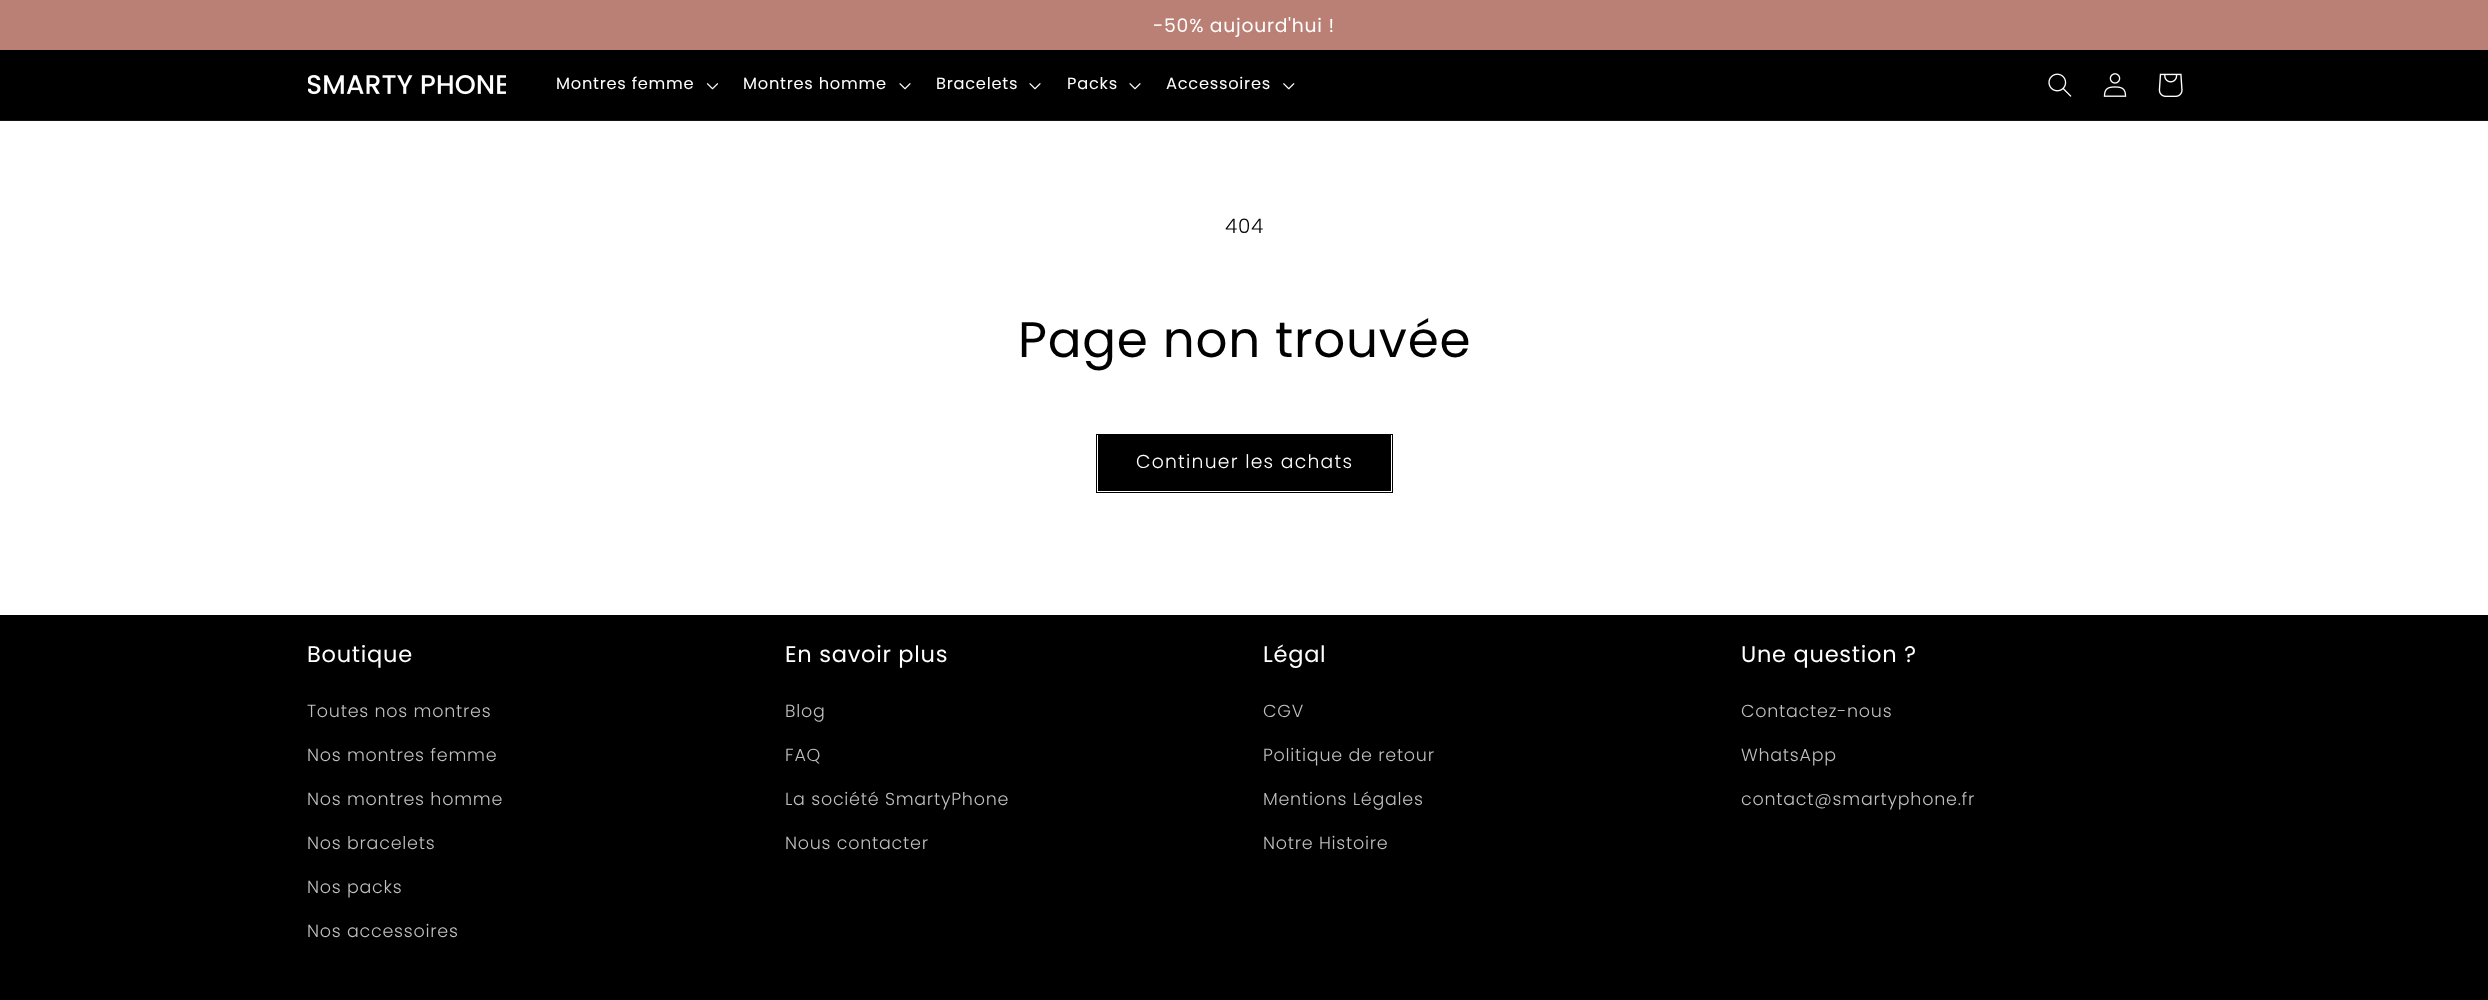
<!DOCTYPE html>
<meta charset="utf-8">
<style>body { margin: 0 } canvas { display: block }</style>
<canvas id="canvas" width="2488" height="1000"></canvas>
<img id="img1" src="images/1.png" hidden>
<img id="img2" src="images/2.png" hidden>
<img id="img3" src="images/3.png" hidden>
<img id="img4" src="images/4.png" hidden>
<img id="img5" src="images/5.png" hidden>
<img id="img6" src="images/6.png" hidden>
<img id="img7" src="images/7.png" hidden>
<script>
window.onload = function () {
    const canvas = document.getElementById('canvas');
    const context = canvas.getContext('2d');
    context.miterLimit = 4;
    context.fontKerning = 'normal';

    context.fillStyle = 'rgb(255, 255, 255)';
    context.fillRect(0, 0, 2488, 1000);
    context.fillStyle = 'rgb(186, 128, 117)';
    context.fillRect(0, 0, 2488, 50);
    context.fillStyle = 'rgb(0, 0, 0)';
    context.fillRect(0, 50, 2488, 70);
    context.fillStyle = 'rgb(20, 20, 20)';
    context.fillRect(0, 120, 2488, 1);
    context.drawImage(document.getElementById('img1'), 308, 75, 198, 20);
    context.drawImage(document.getElementById('img2'), 706, 83, 13, 7);
    context.drawImage(document.getElementById('img3'), 899, 83, 12, 7);
    context.drawImage(document.getElementById('img3'), 1029, 83, 12, 7);
    context.drawImage(document.getElementById('img3'), 1129, 83, 12, 7);
    context.drawImage(document.getElementById('img4'), 1283, 83, 12, 7);
    context.drawImage(document.getElementById('img5'), 2048, 73, 24, 24);
    context.drawImage(document.getElementById('img6'), 2103, 73, 24, 24);
    context.drawImage(document.getElementById('img7'), 2158, 73, 25, 24);
    context.strokeStyle = 'rgb(0, 0, 0)';
    context.strokeRect(1096.5, 434.5, 296, 58);
    context.fillStyle = 'rgb(0, 0, 0)';
    context.fillRect(1098, 435, 293, 56);
    context.fillRect(0, 615, 2488, 385);
    context.letterSpacing = '0.75px';
    context.font = '18.75px Poppins';
    context.fillStyle = 'rgb(255, 255, 255)';
    context.fillText('-50% aujourd\'hui !', 1153, 32);
    context.font = '16.25px Poppins';
    context.fillText('Montres femme', 556, 89);
    context.fillText('Montres homme', 743, 89);
    context.fillText('Bracelets', 936, 89);
    context.fillText('Packs', 1067, 89);
    context.fillText('Accessoires', 1166, 89);
    context.font = '300 20px Poppins';
    context.fillStyle = 'rgb(0, 0, 0)';
    context.fillText('404', 1225, 233);
    context.font = '50px Poppins';
    context.fillText('Page non trouvée', 1018, 357);
    context.letterSpacing = '1.25px';
    context.font = '300 18.75px Poppins';
    context.fillStyle = 'rgb(255, 255, 255)';
    context.fillText('Continuer les achats', 1136, 468);
    context.letterSpacing = '0.75px';
    context.font = '22.5px Poppins';
    context.fillText('Boutique', 307, 662);
    context.font = '300 17.5px Poppins';
    context.fillStyle = 'rgb(191, 191, 191)';
    context.fillText('Toutes nos montres', 307, 717);
    context.fillText('Nos montres femme', 307, 761);
    context.fillText('Nos montres homme', 307, 805);
    context.fillText('Nos bracelets', 307, 849);
    context.fillText('Nos packs', 307, 893);
    context.fillText('Nos accessoires', 307, 937);
    context.font = '22.5px Poppins';
    context.fillStyle = 'rgb(255, 255, 255)';
    context.fillText('En savoir plus', 785, 662);
    context.font = '300 17.5px Poppins';
    context.fillStyle = 'rgb(191, 191, 191)';
    context.fillText('Blog', 785, 717);
    context.fillText('FAQ', 785, 761);
    context.fillText('La société SmartyPhone', 785, 805);
    context.fillText('Nous contacter', 785, 849);
    context.font = '22.5px Poppins';
    context.fillStyle = 'rgb(255, 255, 255)';
    context.fillText('Légal', 1263, 662);
    context.font = '300 17.5px Poppins';
    context.fillStyle = 'rgb(191, 191, 191)';
    context.fillText('CGV', 1263, 717);
    context.fillText('Politique de retour', 1263, 761);
    context.fillText('Mentions Légales', 1263, 805);
    context.fillText('Notre Histoire', 1263, 849);
    context.font = '22.5px Poppins';
    context.fillStyle = 'rgb(255, 255, 255)';
    context.fillText('Une question ?', 1741, 662);
    context.font = '300 17.5px Poppins';
    context.fillStyle = 'rgb(191, 191, 191)';
    context.fillText('Contactez-nous', 1741, 717);
    context.fillText('WhatsApp', 1741, 761);
    context.fillText('contact@smartyphone.fr', 1741, 805);
};
</script>
